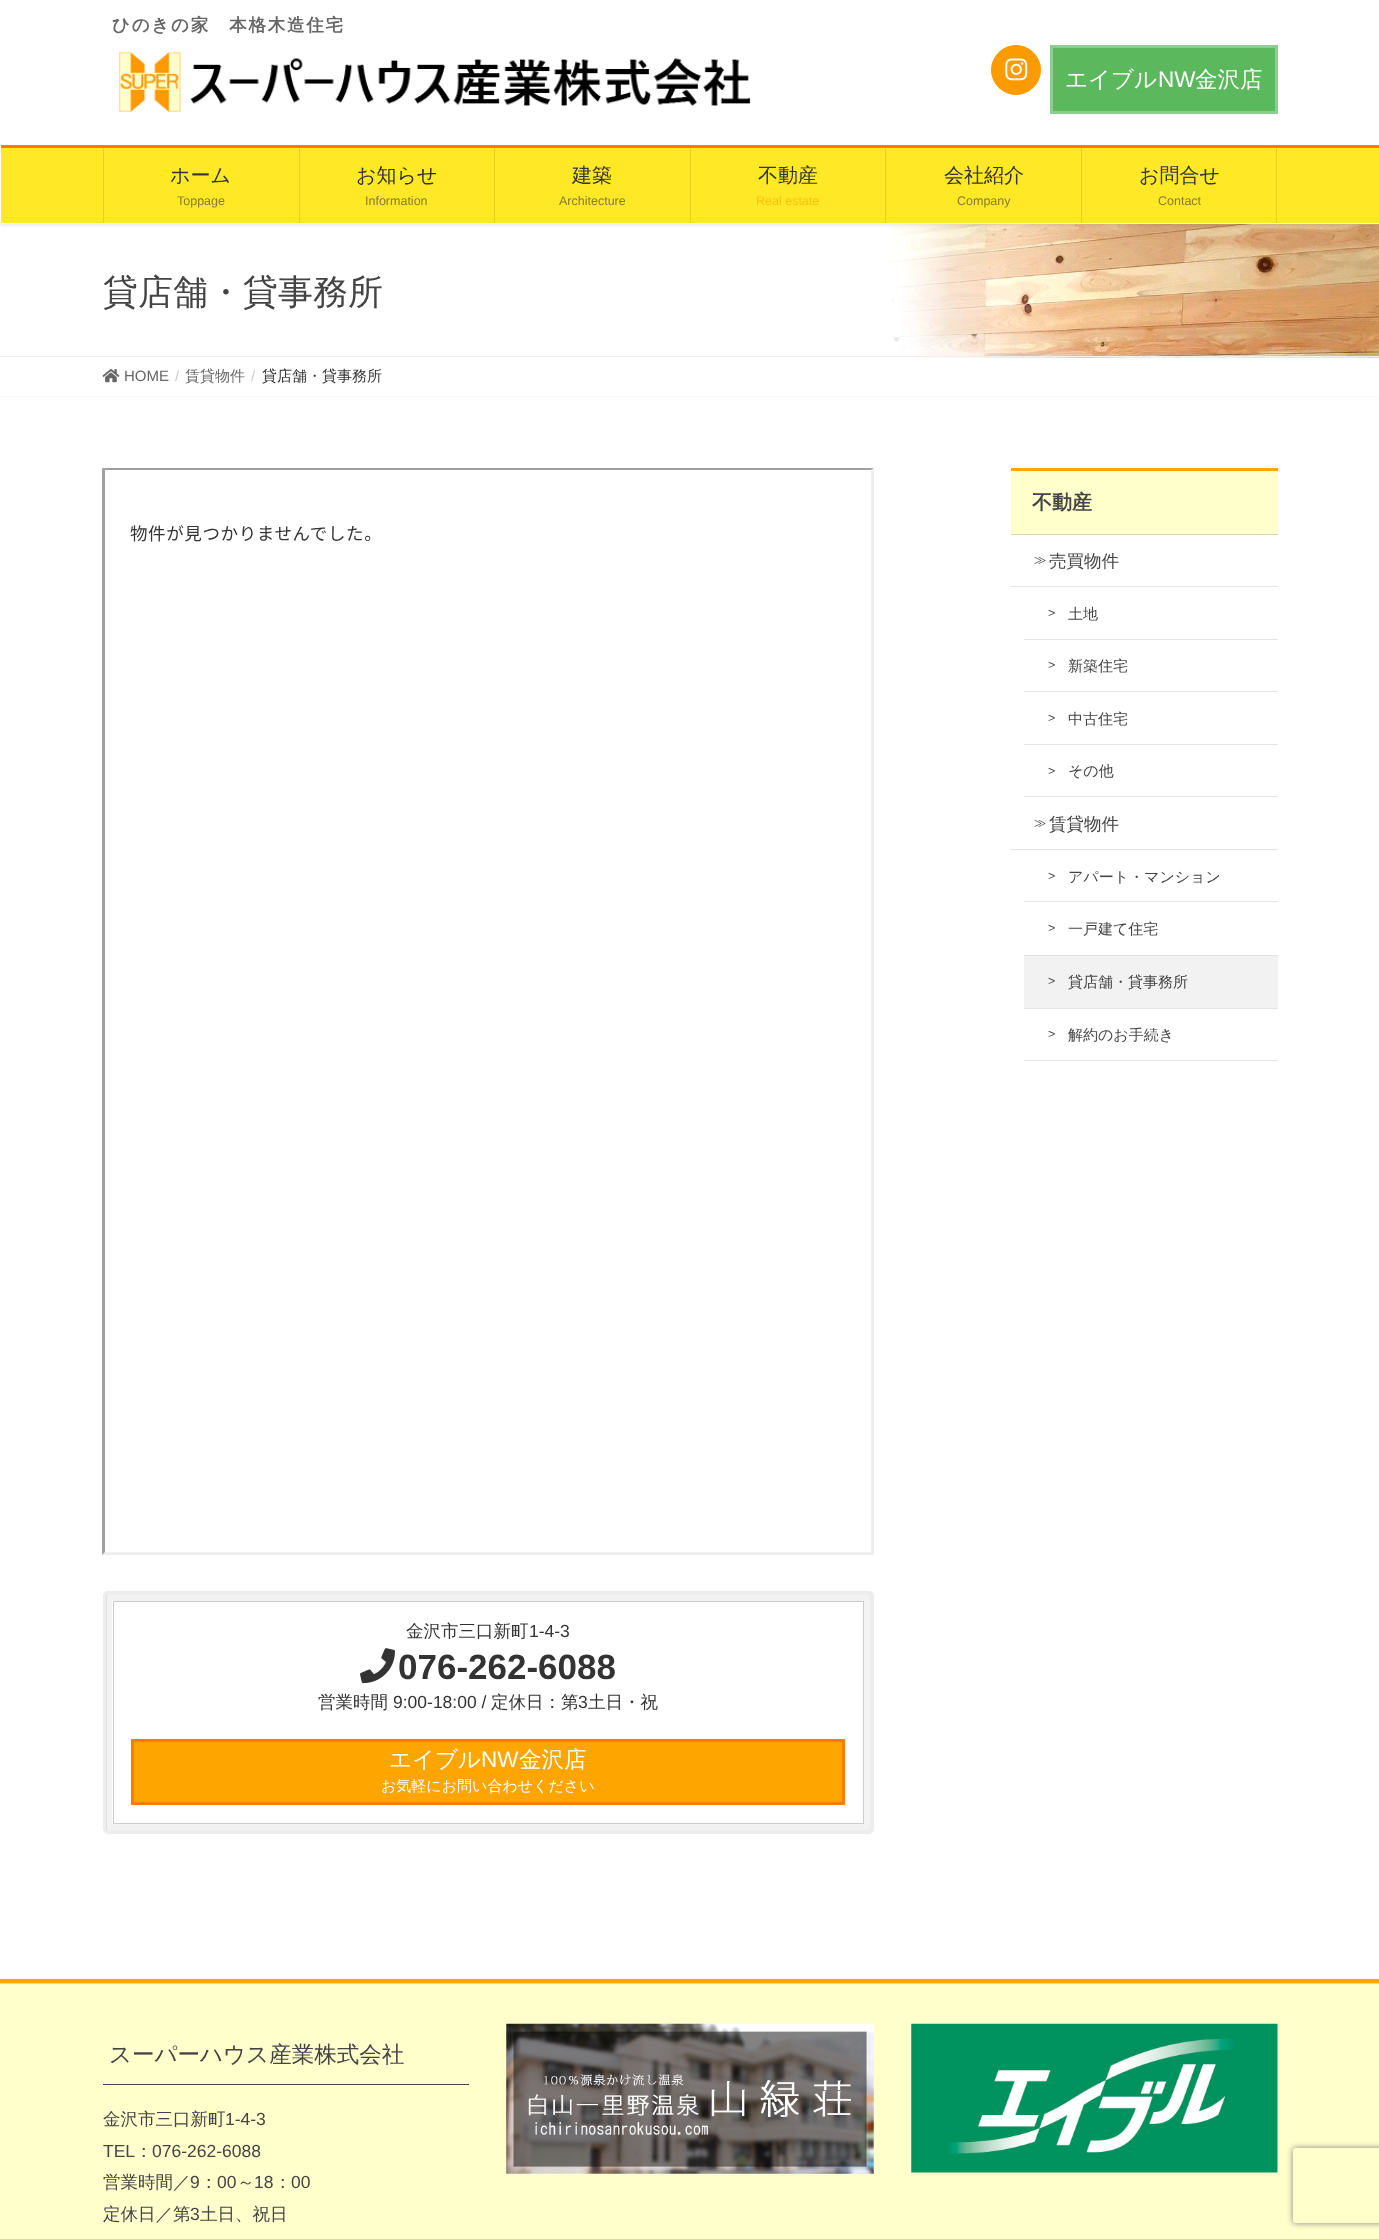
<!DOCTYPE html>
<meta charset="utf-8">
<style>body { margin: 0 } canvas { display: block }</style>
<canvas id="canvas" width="1379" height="2239"></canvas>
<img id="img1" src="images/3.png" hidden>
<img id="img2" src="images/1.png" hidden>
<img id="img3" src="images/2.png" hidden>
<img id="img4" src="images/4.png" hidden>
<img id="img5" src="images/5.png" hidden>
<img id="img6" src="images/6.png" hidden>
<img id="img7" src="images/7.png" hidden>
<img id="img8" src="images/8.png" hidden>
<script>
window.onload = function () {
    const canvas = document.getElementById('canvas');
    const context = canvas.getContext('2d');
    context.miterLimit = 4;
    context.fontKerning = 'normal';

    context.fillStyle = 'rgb(255, 255, 255)';
    context.fillRect(0, 0, 1379, 2239);
    context.drawImage(document.getElementById('img1'), 892, 224, 487, 134);
    context.fillStyle = 'rgba(0, 0, 0, 0.1)';
    context.filter = 'blur(2px)';
    context.beginPath();
    context.rect(0, 1, 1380, 224);
    context.fill();
    context.filter = 'none';
    context.fillStyle = 'rgb(255, 255, 255)';
    context.fillRect(0, 0, 1379, 224);
    context.drawImage(document.getElementById('img2'), 119, 52, 632, 60);
    context.fillStyle = 'rgb(252, 155, 0)';
    context.beginPath();
    context.arc(1016, 70, 24.5, 0, 2 * Math.PI);
    context.fill();
    context.strokeStyle = 'rgb(252, 155, 0)';
    context.stroke();
    context.drawImage(document.getElementById('img3'), 1005, 58, 23, 23);
    context.fillStyle = 'rgb(92, 184, 92)';
    context.beginPath();
    context.rect(1051.5, 46.5, 225, 66);
    context.fill();
    context.strokeStyle = 'rgb(141, 205, 141)';
    context.lineWidth = 3;
    context.stroke();
    context.fillStyle = 'rgb(255, 232, 38)';
    context.fillRect(1, 148, 1378, 75);
    context.fillStyle = 'rgb(255, 124, 0)';
    context.fillRect(1, 145, 1378, 3);
    context.fillStyle = 'rgb(230, 209, 34)';
    context.fillRect(103, 148, 1, 75);
    context.fillRect(299, 148, 1, 75);
    context.fillRect(494, 148, 1, 75);
    context.fillRect(690, 148, 1, 75);
    context.fillRect(885, 148, 1, 75);
    context.fillRect(1276, 148, 1, 75);
    context.fillRect(1081, 148, 1, 75);
    context.fillStyle = 'rgb(238, 238, 238)';
    context.fillRect(0, 356, 1379, 1);
    context.fillStyle = 'rgb(243, 243, 243)';
    context.fillRect(0, 396, 1379, 1);
    context.drawImage(document.getElementById('img4'), 102, 369, 18, 14);
    context.fillStyle = 'rgb(255, 255, 204)';
    context.fillRect(1011, 471, 267, 63);
    context.fillStyle = 'rgb(255, 165, 0)';
    context.fillRect(1011, 468, 267, 3);
    context.fillStyle = 'rgb(217, 217, 173)';
    context.fillRect(1011, 534, 267, 1);
    context.fillStyle = 'rgb(229, 229, 229)';
    context.fillRect(1011, 586, 267, 1);
    context.fillRect(1024, 639, 254, 1);
    context.fillRect(1024, 691, 254, 1);
    context.fillRect(1024, 744, 254, 1);
    context.fillRect(1024, 796, 254, 1);
    context.fillRect(1011, 849, 267, 1);
    context.fillRect(1024, 901, 254, 1);
    context.fillRect(1024, 955, 254, 1);
    context.fillStyle = 'rgb(242, 242, 242)';
    context.fillRect(1024, 956, 254, 52);
    context.fillStyle = 'rgb(229, 229, 229)';
    context.fillRect(1024, 1008, 254, 1);
    context.fillRect(1024, 1060, 254, 1);
    context.fillStyle = 'rgb(159, 159, 159)';
    context.beginPath();
    context.moveTo(102, 468);
    context.lineTo(874, 468);
    context.lineTo(871, 470);
    context.lineTo(105, 470);
    context.closePath();
    context.fill();
    context.fillStyle = 'rgb(238, 238, 238)';
    context.beginPath();
    context.moveTo(874, 468);
    context.lineTo(874, 1555);
    context.lineTo(871, 1552);
    context.lineTo(871, 470);
    context.closePath();
    context.fill();
    context.beginPath();
    context.moveTo(874, 1555);
    context.lineTo(102, 1555);
    context.lineTo(105, 1552);
    context.lineTo(871, 1552);
    context.closePath();
    context.fill();
    context.fillStyle = 'rgb(159, 159, 159)';
    context.beginPath();
    context.moveTo(102, 1555);
    context.lineTo(102, 468);
    context.lineTo(105, 470);
    context.lineTo(105, 1552);
    context.closePath();
    context.fill();
    context.drawImage(document.getElementById('img5'), 105, 525, 766, 1028);
    context.beginPath();
    context.roundRect(105, 1593, 767, 239, 3);
    context.strokeStyle = 'rgb(237, 237, 237)';
    context.lineWidth = 4;
    context.stroke();
    context.strokeStyle = 'rgb(204, 204, 204)';
    context.lineWidth = 1;
    context.strokeRect(113.5, 1601.5, 750, 222);
    context.fillStyle = 'rgba(0, 0, 0, 0.05)';
    context.beginPath();
    context.moveTo(107, 1595);
    context.bezierCurveTo(106, 1595, 106, 1595, 106, 1596);
    context.lineTo(106, 1829);
    context.bezierCurveTo(106, 1830, 106, 1830, 107, 1830);
    context.lineTo(869, 1830);
    context.bezierCurveTo(870, 1830, 870, 1830, 870, 1829);
    context.lineTo(870, 1596);
    context.bezierCurveTo(870, 1595, 870, 1595, 869, 1595);
    context.closePath();
    context.moveTo(112, 1601);
    context.lineTo(112, 1824);
    context.lineTo(864, 1824);
    context.lineTo(864, 1601);
    context.closePath();
    context.fill('evenodd');
    context.drawImage(document.getElementById('img6'), 360, 1648, 35, 36);
    context.fillStyle = 'rgb(255, 165, 0)';
    context.beginPath();
    context.rect(132.5, 1740.5, 711, 63);
    context.fill();
    context.strokeStyle = 'rgb(255, 124, 0)';
    context.lineWidth = 3;
    context.stroke();
    context.fillStyle = 'rgb(255, 255, 204)';
    context.fillRect(0, 1984, 1379, 255);
    context.fillStyle = 'rgb(255, 165, 0)';
    context.fillRect(0, 1979, 1379, 4);
    context.fillStyle = 'rgb(220, 220, 220)';
    context.fillRect(0, 1983, 1379, 1);
    context.fillStyle = 'rgb(68, 68, 68)';
    context.fillRect(103, 2084, 366, 1);
    context.fillStyle = 'rgb(255, 255, 212)';
    context.fillRect(109, 2083, 366, 1);
    context.drawImage(document.getElementById('img7'), 506, 2023, 368, 151);
    context.drawImage(document.getElementById('img8'), 911, 2023, 367, 150);
    context.save();
    context.beginPath();
    context.moveTo(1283, 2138);
    context.lineTo(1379, 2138);
    context.lineTo(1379, 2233);
    context.lineTo(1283, 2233);
    context.closePath();
    context.moveTo(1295.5, 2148);
    context.lineTo(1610.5, 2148);
    context.bezierCurveTo(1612, 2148, 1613, 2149, 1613, 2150.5);
    context.lineTo(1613, 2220.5);
    context.bezierCurveTo(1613, 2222, 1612, 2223, 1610.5, 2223);
    context.lineTo(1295.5, 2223);
    context.bezierCurveTo(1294, 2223, 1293, 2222, 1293, 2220.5);
    context.lineTo(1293, 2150.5);
    context.bezierCurveTo(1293, 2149, 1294, 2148, 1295.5, 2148);
    context.closePath();
    context.clip('evenodd');
    context.fillStyle = 'rgb(128, 128, 128)';
    context.filter = 'blur(3px)';
    context.beginPath();
    context.roundRect(1293, 2148, 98, 75, 2.5);
    context.fill();
    context.filter = 'none';
    context.restore();
    context.letterSpacing = '1.75px';
    context.font = 'bold 17.5px WenQuanYi Zen Hei';
    context.fillStyle = 'rgb(102, 102, 102)';
    context.fillText('ひのきの家　本格木造住宅', 112, 31);
    context.letterSpacing = '0px';
    context.font = '500 22.5px WenQuanYi Zen Hei';
    context.fillStyle = 'rgb(255, 255, 255)';
    context.fillText('エイブル', 1065, 87);
    context.font = '22.5px Liberation Sans';
    context.fillText('NW', 1158, 87);
    context.font = '500 22.5px WenQuanYi Zen Hei';
    context.fillText('金沢店', 1195, 87);
    context.font = '500 20px WenQuanYi Zen Hei';
    context.fillStyle = 'rgb(51, 51, 51)';
    context.fillText('ホーム', 170, 182);
    context.font = '12.5px Liberation Sans';
    context.fillStyle = 'rgb(133, 123, 46)';
    context.fillText('Toppage', 177, 205);
    context.font = '500 20px WenQuanYi Zen Hei';
    context.fillStyle = 'rgb(51, 51, 51)';
    context.fillText('お知らせ', 356, 182);
    context.font = '12.5px Liberation Sans';
    context.fillStyle = 'rgb(133, 123, 46)';
    context.fillText('Information', 365, 205);
    context.font = '500 20px WenQuanYi Zen Hei';
    context.fillStyle = 'rgb(51, 51, 51)';
    context.fillText('建築', 572, 182);
    context.font = '12.5px Liberation Sans';
    context.fillStyle = 'rgb(133, 123, 46)';
    context.fillText('Architecture', 559, 205);
    context.font = '500 20px WenQuanYi Zen Hei';
    context.fillStyle = 'rgb(51, 51, 51)';
    context.fillText('不動産', 758, 182);
    context.font = '12.5px Liberation Sans';
    context.fillStyle = 'rgb(255, 192, 15)';
    context.fillText('Real estate', 756, 205);
    context.font = '500 20px WenQuanYi Zen Hei';
    context.fillStyle = 'rgb(51, 51, 51)';
    context.fillText('会社紹介', 944, 182);
    context.font = '12.5px Liberation Sans';
    context.fillStyle = 'rgb(133, 123, 46)';
    context.fillText('Company', 957, 205);
    context.font = '500 20px WenQuanYi Zen Hei';
    context.fillStyle = 'rgb(51, 51, 51)';
    context.fillText('お問合せ', 1139, 182);
    context.font = '12.5px Liberation Sans';
    context.fillStyle = 'rgb(133, 123, 46)';
    context.fillText('Contact', 1158, 205);
    context.font = '500 35px WenQuanYi Zen Hei';
    context.fillStyle = 'rgb(68, 68, 68)';
    context.fillText('貸店舗・貸事務所', 103, 304);
    context.font = '15px Liberation Sans';
    context.fillStyle = 'rgb(102, 102, 102)';
    context.fillText('HOME', 124, 381);
    context.fillStyle = 'rgb(204, 204, 204)';
    context.fillText('/', 175, 381);
    context.font = '500 15px WenQuanYi Zen Hei';
    context.fillStyle = 'rgb(102, 102, 102)';
    context.fillText('賃貸物件', 185, 381);
    context.font = '15px Liberation Sans';
    context.fillStyle = 'rgb(204, 204, 204)';
    context.fillText('/', 251, 381);
    context.font = '500 15px WenQuanYi Zen Hei';
    context.fillStyle = 'rgb(51, 51, 51)';
    context.fillText('貸店舗・貸事務所', 262, 381);
    context.font = 'bold 20px WenQuanYi Zen Hei';
    context.fillStyle = 'rgb(68, 68, 68)';
    context.fillText('不動産', 1032, 509);
    context.font = '500 12.5px WenQuanYi Zen Hei';
    context.fillText('≫', 1034, 564);
    context.font = '500 17.5px WenQuanYi Zen Hei';
    context.fillText('売買物件', 1049, 567);
    context.font = '12.5px Liberation Sans';
    context.fillText('>', 1048, 617);
    context.font = '500 15px WenQuanYi Zen Hei';
    context.fillText('土地', 1068, 619);
    context.font = '12.5px Liberation Sans';
    context.fillText('>', 1048, 669);
    context.font = '500 15px WenQuanYi Zen Hei';
    context.fillText('新築住宅', 1068, 671);
    context.font = '12.5px Liberation Sans';
    context.fillText('>', 1048, 722);
    context.font = '500 15px WenQuanYi Zen Hei';
    context.fillText('中古住宅', 1068, 724);
    context.font = '12.5px Liberation Sans';
    context.fillText('>', 1048, 775);
    context.font = '500 15px WenQuanYi Zen Hei';
    context.fillText('その他', 1068, 776);
    context.font = '500 12.5px WenQuanYi Zen Hei';
    context.fillText('≫', 1034, 827);
    context.font = '500 17.5px WenQuanYi Zen Hei';
    context.fillText('賃貸物件', 1049, 830);
    context.font = '12.5px Liberation Sans';
    context.fillText('>', 1048, 880);
    context.font = '500 15px WenQuanYi Zen Hei';
    context.fillText('アパート・マンション', 1068, 882);
    context.font = '12.5px Liberation Sans';
    context.fillText('>', 1048, 932);
    context.font = '500 15px WenQuanYi Zen Hei';
    context.fillText('一戸建て住宅', 1068, 934);
    context.font = '12.5px Liberation Sans';
    context.fillText('>', 1048, 985);
    context.font = '500 15px WenQuanYi Zen Hei';
    context.fillText('貸店舗・貸事務所', 1068, 987);
    context.font = '12.5px Liberation Sans';
    context.fillText('>', 1048, 1038);
    context.font = '500 15px WenQuanYi Zen Hei';
    context.fillText('解約のお手続き', 1068, 1040);
    context.font = '500 17.5px WenQuanYi Zen Hei';
    context.fillStyle = 'rgb(51, 51, 51)';
    context.fillText('金沢市三口新町', 406, 1637);
    context.font = '17.5px Liberation Sans';
    context.fillText('1-4-3', 529, 1637);
    context.font = 'bold 35px Liberation Sans';
    context.fillText('076-262-6088', 398, 1679);
    context.font = '500 17.5px WenQuanYi Zen Hei';
    context.fillText('営業時間', 318, 1708);
    context.font = '17.5px Liberation Sans';
    context.fillText('9:00-18:00 /', 393, 1708);
    context.font = '500 17.5px WenQuanYi Zen Hei';
    context.fillText('定休日：第', 491, 1708);
    context.font = '17.5px Liberation Sans';
    context.fillText('3', 578, 1708);
    context.font = '500 17.5px WenQuanYi Zen Hei';
    context.fillText('土日・祝', 588, 1708);
    context.font = '500 22.5px WenQuanYi Zen Hei';
    context.fillStyle = 'rgb(255, 255, 255)';
    context.fillText('エイブル', 389, 1767);
    context.font = '22.5px Liberation Sans';
    context.fillText('NW', 481, 1767);
    context.font = '500 22.5px WenQuanYi Zen Hei';
    context.fillText('金沢店', 519, 1767);
    context.font = '500 15px WenQuanYi Zen Hei';
    context.fillText('お気軽にお問い合わせください', 381, 1791);
    context.font = '500 22.5px WenQuanYi Zen Hei';
    context.fillStyle = 'rgb(68, 68, 68)';
    context.fillText('スーパーハウス産業株式会社', 109, 2062);
    context.font = '500 17.5px WenQuanYi Zen Hei';
    context.fillText('金沢市三口新町', 103, 2125);
    context.font = '17.5px Liberation Sans';
    context.fillText('1-4-3', 225, 2125);
    context.fillText('TEL', 103, 2157);
    context.font = '500 17.5px WenQuanYi Zen Hei';
    context.fillText('：', 135, 2157);
    context.font = '17.5px Liberation Sans';
    context.fillText('076-262-6088', 152, 2157);
    context.font = '500 17.5px WenQuanYi Zen Hei';
    context.fillText('営業時間／', 103, 2188);
    context.font = '17.5px Liberation Sans';
    context.fillText('9', 190, 2188);
    context.font = '500 17.5px WenQuanYi Zen Hei';
    context.fillText('：', 200, 2188);
    context.font = '17.5px Liberation Sans';
    context.fillText('00', 217, 2188);
    context.font = '500 17.5px WenQuanYi Zen Hei';
    context.fillText('～', 237, 2188);
    context.font = '17.5px Liberation Sans';
    context.fillText('18', 254, 2188);
    context.font = '500 17.5px WenQuanYi Zen Hei';
    context.fillText('：', 274, 2188);
    context.font = '17.5px Liberation Sans';
    context.fillText('00', 291, 2188);
    context.font = '500 17.5px WenQuanYi Zen Hei';
    context.fillText('定休日／第', 103, 2220);
    context.font = '17.5px Liberation Sans';
    context.fillText('3', 190, 2220);
    context.font = '500 17.5px WenQuanYi Zen Hei';
    context.fillText('土日、祝日', 200, 2220);
};
</script>
